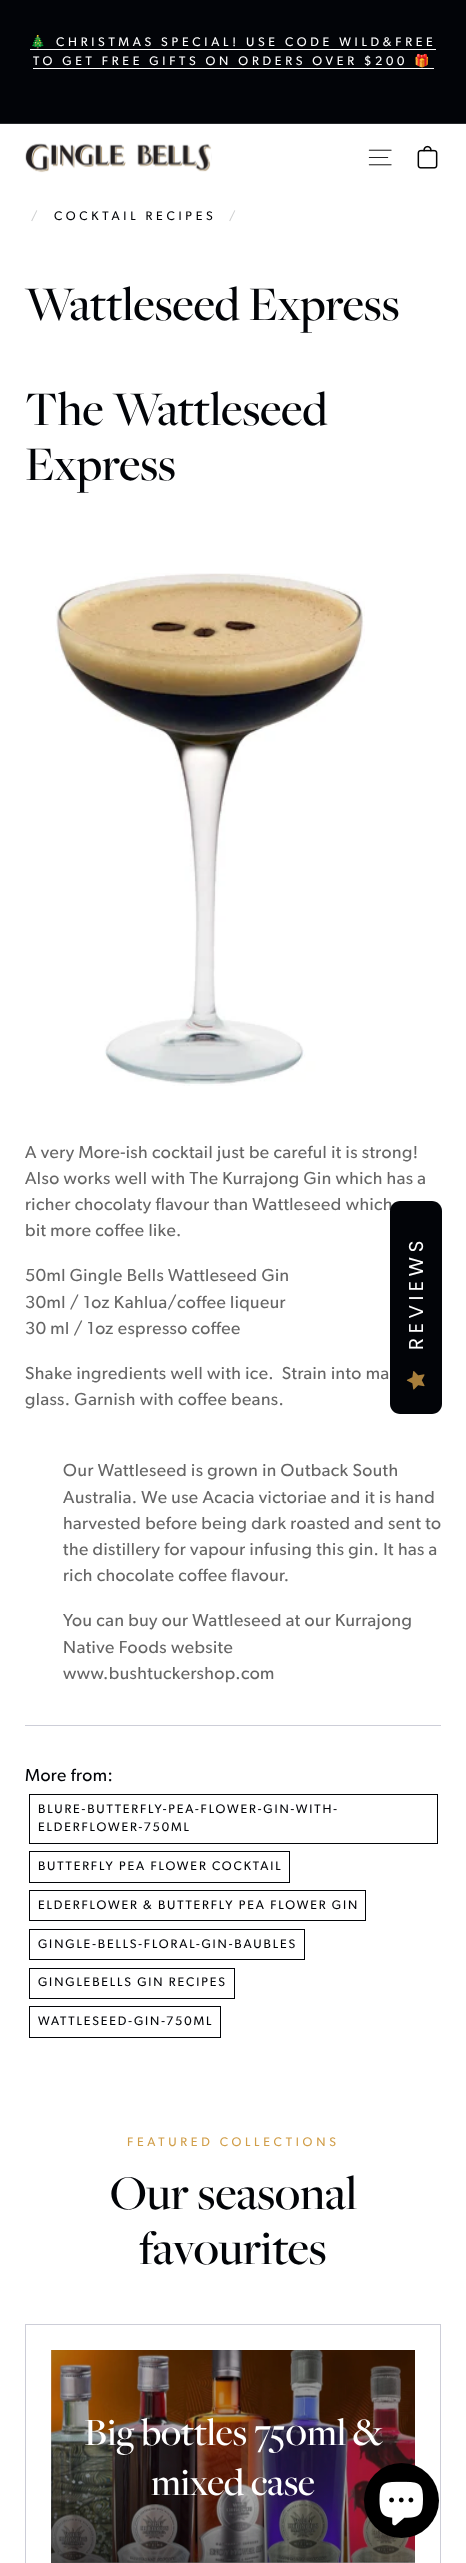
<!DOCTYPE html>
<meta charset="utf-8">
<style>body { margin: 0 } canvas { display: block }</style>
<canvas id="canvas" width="466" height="2563"></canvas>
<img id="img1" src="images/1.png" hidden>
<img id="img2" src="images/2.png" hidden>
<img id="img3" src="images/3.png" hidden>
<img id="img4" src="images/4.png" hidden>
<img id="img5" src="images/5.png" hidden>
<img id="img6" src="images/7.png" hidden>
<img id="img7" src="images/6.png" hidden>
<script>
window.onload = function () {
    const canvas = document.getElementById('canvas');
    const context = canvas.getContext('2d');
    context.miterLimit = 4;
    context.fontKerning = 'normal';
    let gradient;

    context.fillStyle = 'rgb(255, 255, 255)';
    context.fillRect(0, 0, 466, 2563);
    context.fillStyle = 'rgb(179, 179, 179)';
    context.fillRect(51, 2350, 364, 213);
    context.fillStyle = 'rgb(2, 4, 8)';
    context.fillRect(0, 0, 466, 123);
    context.fillStyle = 'rgb(255, 255, 255)';
    context.fillRect(30, 49, 406, 1);
    context.fillRect(33, 68, 401, 1);
    context.fillStyle = 'rgb(40, 42, 45)';
    context.fillRect(0, 123, 466, 1);
    context.drawImage(document.getElementById('img1'), 25, 143, 187, 30);
    context.drawImage(document.getElementById('img2'), 368, 149, 24, 17);
    context.drawImage(document.getElementById('img3'), 417, 145, 21, 24);
    context.drawImage(document.getElementById('img4'), 55, 573, 310, 513);
    context.fillStyle = 'rgb(205, 206, 216)';
    context.fillRect(25, 1725, 416, 1);
    context.strokeStyle = 'rgb(2, 4, 8)';
    context.strokeRect(29.5, 1794.5, 408, 49);
    context.strokeRect(29.5, 1851.5, 260, 31);
    context.strokeRect(29.5, 1890.5, 336, 30);
    context.strokeRect(29.5, 1929.5, 275, 30);
    context.strokeRect(29.5, 1968.5, 205, 30);
    context.strokeRect(29.5, 2006.5, 191, 31);
    context.strokeStyle = 'rgb(205, 206, 216)';
    context.strokeRect(25.5, 2324.5, 415, 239);
    context.drawImage(document.getElementById('img5'), 51, 2350, 364, 213);
    gradient = context.createLinearGradient(194, 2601, 272, 2312);
    gradient.addColorStop(0, 'rgba(0, 0, 0, 0.6)');
    gradient.addColorStop(0.4, 'rgba(0, 0, 0, 0)');
    context.fillStyle = gradient;
    context.fillRect(51, 2445, 364, 118);
    context.fillStyle = 'rgb(0, 0, 0)';
    context.beginPath();
    context.arc(401.5, 2500.5, 37.5, 0, 2 * Math.PI);
    context.fill();
    context.drawImage(document.getElementById('img6'), 379, 2481, 44, 45);
    context.letterSpacing = '3.75px';
    context.font = '12.5px Noto Color Emoji';
    context.fillStyle = 'rgb(255, 255, 255)';
    context.fillText('🎄', 30, 46);
    context.font = '12.5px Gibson';
    context.fillText('CHRISTMAS SPECIAL! USE CODE WILD&FREE', 56, 46);
    context.fillText('TO GET FREE GIFTS ON ORDERS OVER $200', 33, 65);
    context.font = '12.5px Noto Color Emoji';
    context.fillText('🎁', 414, 65);
    context.font = '12.5px Gibson';
    context.fillStyle = 'rgb(204, 205, 206)';
    context.fillText('/', 31, 220);
    context.fillStyle = 'rgb(2, 4, 8)';
    context.fillText('COCKTAIL RECIPES', 54, 220);
    context.fillStyle = 'rgb(204, 205, 206)';
    context.fillText('/', 229, 220);
    context.letterSpacing = '0px';
    context.font = '500 50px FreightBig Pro';
    context.fillStyle = 'rgb(2, 4, 8)';
    context.fillText('Wattleseed Express', 25, 320);
    context.fillText('The Wattleseed', 25, 425);
    context.fillText('Express', 25, 480);
    context.letterSpacing = '0.45px';
    context.font = '17.5px Gibson';
    context.fillStyle = 'rgb(102, 102, 102)';
    context.fillText('A very More-ish cocktail just be careful it is strong!', 25, 1158);
    context.fillText('Also works well with The Kurrajong Gin which has a', 25, 1184);
    context.fillText('richer chocolaty flavour than Wattleseed which', 25, 1210);
    context.fillText('bit more coffee like.', 25, 1236);
    context.fillText('50ml Gingle Bells Wattleseed Gin', 25, 1281);
    context.fillText('30ml / 1oz Kahlua/coffee liqueur', 25, 1308);
    context.fillText('30 ml / 1oz espresso coffee', 25, 1334);
    context.fillText('Shake ingredients well with ice.  Strain into ma', 25, 1379);
    context.fillText('glass. Garnish with coffee beans.', 25, 1405);
    context.fillText('Our Wattleseed is grown in Outback South', 63, 1476);
    context.fillText('Australia. We use Acacia victoriae and it is hand', 63, 1503);
    context.fillText('harvested before being dark roasted and sent to', 63, 1529);
    context.fillText('the distillery for vapour infusing this gin. It has a', 63, 1555);
    context.fillText('rich chocolate coffee flavour.', 63, 1581);
    context.fillText('You can buy our Wattleseed at our Kurrajong', 63, 1626);
    context.fillText('Native Foods website', 63, 1653);
    context.fillText('www.bushtuckershop.com', 63, 1679);
    context.fillStyle = 'rgb(2, 4, 8)';
    context.fillText('More from:', 25, 1781);
    context.letterSpacing = '1.9px';
    context.font = '12.5px Gibson';
    context.fillText('BLURE-BUTTERFLY-PEA-FLOWER-GIN-WITH-', 38, 1813);
    context.fillText('ELDERFLOWER-750ML', 38, 1831);
    context.fillText('BUTTERFLY PEA FLOWER COCKTAIL', 38, 1870);
    context.fillText('ELDERFLOWER & BUTTERFLY PEA FLOWER GIN', 38, 1909);
    context.fillText('GINGLE-BELLS-FLORAL-GIN-BAUBLES', 38, 1948);
    context.fillText('GINGLEBELLS GIN RECIPES', 38, 1986);
    context.fillText('WATTLESEED-GIN-750ML', 38, 2025);
    context.letterSpacing = '3.75px';
    context.fillStyle = 'rgb(209, 158, 73)';
    context.fillText('FEATURED COLLECTIONS', 127, 2146);
    context.letterSpacing = '0px';
    context.font = '500 50px FreightBig Pro';
    context.fillStyle = 'rgb(2, 4, 8)';
    context.fillText('Our seasonal', 110, 2209);
    context.fillText('favourites', 139, 2264);
    context.font = '500 40px FreightBig Pro';
    context.fillStyle = 'rgb(255, 255, 255)';
    context.fillText('Big bottles 750ml &', 84, 2445);
    context.fillText('mixed case', 151, 2495);
    context.fillStyle = 'rgb(2, 4, 8)';
    context.beginPath();
    context.moveTo(390, 1404);
    context.lineTo(390, 1211);
    context.bezierCurveTo(390, 1205, 395, 1201, 400, 1201);
    context.lineTo(432, 1201);
    context.bezierCurveTo(437, 1201, 442, 1205, 442, 1211);
    context.lineTo(442, 1404);
    context.bezierCurveTo(442, 1410, 437, 1414, 432, 1414);
    context.lineTo(400, 1414);
    context.bezierCurveTo(395, 1414, 390, 1410, 390, 1404);
    context.closePath();
    context.fill();
    context.letterSpacing = '4.5px';
    context.font = '20px Poppins';
    context.fillStyle = 'rgb(255, 255, 255)';
    context.save();
    context.translate(423, 1350);
    context.rotate(-90 * Math.PI / 180);
    context.fillText('REVIEWS', 0, 0);
    context.restore();
    context.drawImage(document.getElementById('img7'), 406, 1371, 19, 19);
};
</script>
